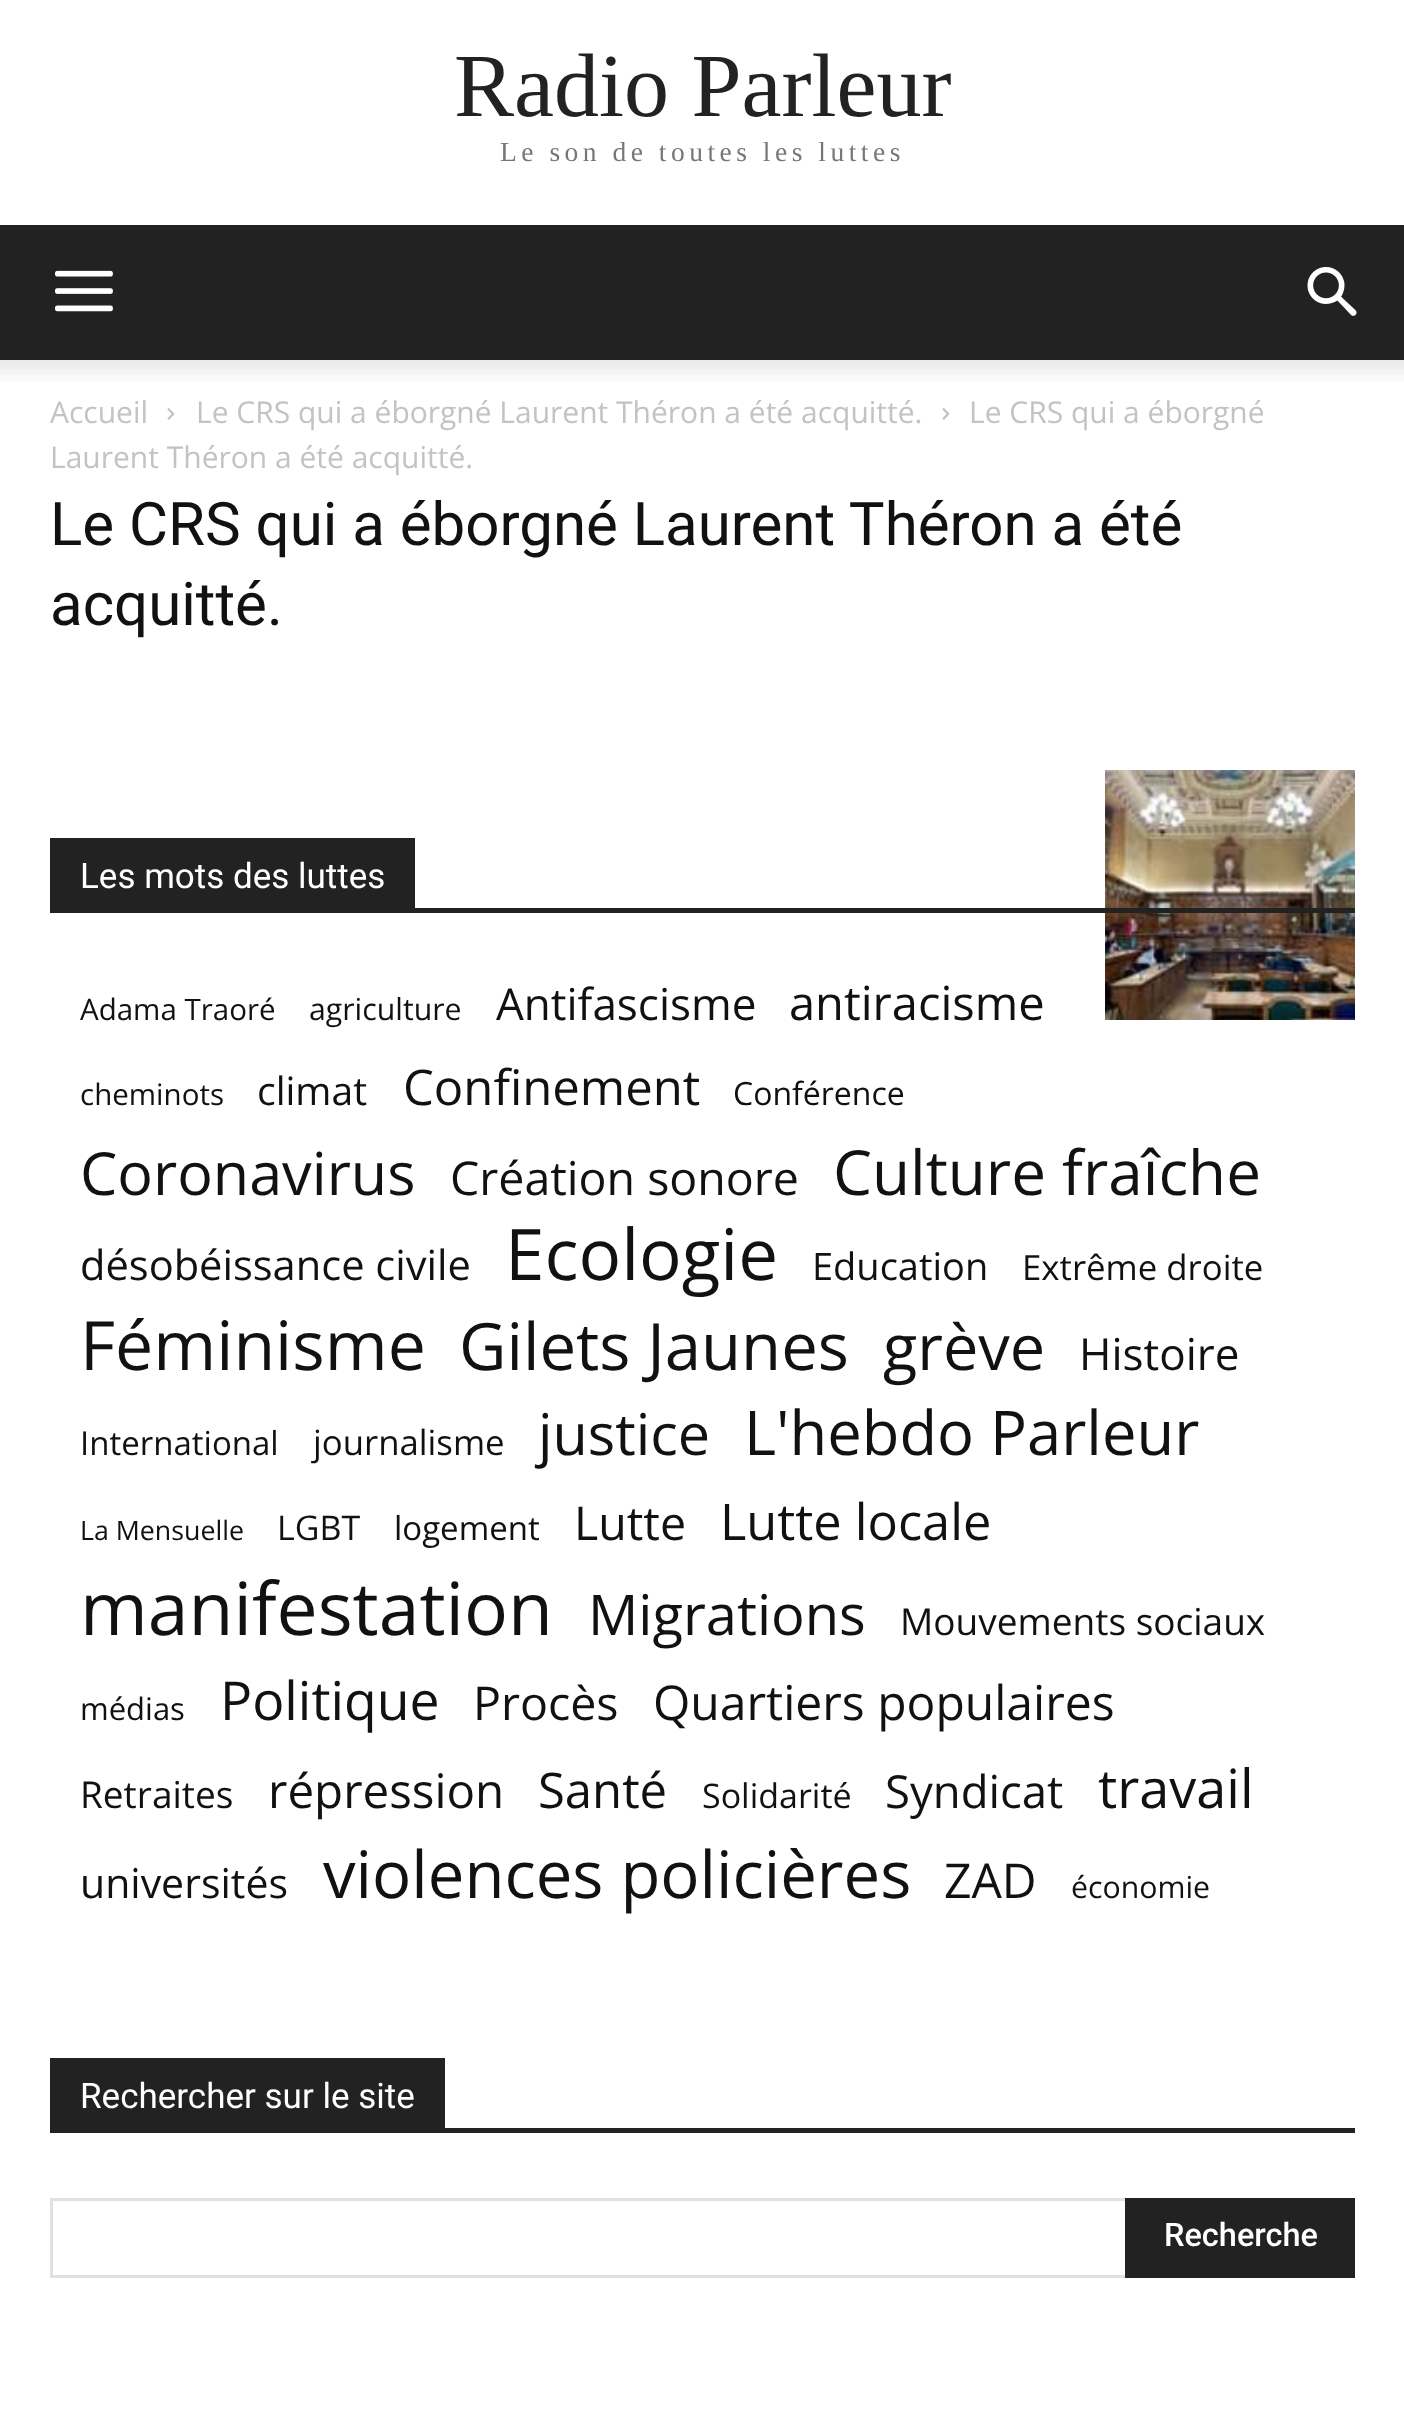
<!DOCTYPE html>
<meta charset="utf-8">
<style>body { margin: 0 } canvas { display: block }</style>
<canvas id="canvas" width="1404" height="2430"></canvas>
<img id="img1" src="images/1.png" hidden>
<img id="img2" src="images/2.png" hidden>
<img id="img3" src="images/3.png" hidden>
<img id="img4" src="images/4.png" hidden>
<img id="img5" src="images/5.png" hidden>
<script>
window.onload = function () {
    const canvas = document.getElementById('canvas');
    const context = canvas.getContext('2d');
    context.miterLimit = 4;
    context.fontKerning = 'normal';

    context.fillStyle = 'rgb(255, 255, 255)';
    context.fillRect(0, 0, 1404, 2430);
    context.fillStyle = 'rgb(34, 34, 34)';
    context.fillRect(0, 225, 1404, 135);
    context.drawImage(document.getElementById('img1'), 55, 270, 58, 42);
    context.drawImage(document.getElementById('img2'), 1307, 267, 50, 49);
    context.drawImage(document.getElementById('img3'), 0, 360, 1404, 21);
    context.drawImage(document.getElementById('img4'), 167, 408, 8, 12);
    context.drawImage(document.getElementById('img4'), 942, 408, 8, 12);
    context.drawImage(document.getElementById('img5'), 1105, 770, 250, 250);
    context.fillRect(50, 908, 1305, 5);
    context.fillRect(50, 838, 365, 70);
    context.fillRect(50, 2128, 1305, 5);
    context.fillRect(50, 2058, 395, 70);
    context.fillStyle = 'rgb(225, 225, 225)';
    context.fillRect(50, 2198, 1075, 3);
    context.fillRect(50, 2275, 1075, 3);
    context.fillRect(50, 2198, 3, 80);
    context.fillStyle = 'rgb(34, 34, 34)';
    context.fillRect(1125, 2198, 230, 80);
    context.font = '90px Liberation Serif';
    context.fillText('Radio Parleur', 454, 116);
    context.letterSpacing = '4.5px';
    context.font = '27.5px Liberation Serif';
    context.fillStyle = 'rgb(119, 119, 119)';
    context.fillText('Le son de toutes les luttes', 500, 161);
    context.letterSpacing = '0px';
    context.font = '30px Open Sans';
    context.fillStyle = 'rgb(195, 195, 195)';
    context.fillText('Accueil', 50, 423);
    context.fillText('Le CRS qui a éborgné Laurent Théron a été acquitté.', 196, 423);
    context.fillText('Le CRS qui a éborgné', 969, 423);
    context.fillText('Laurent Théron a été acquitté.', 50, 468);
    context.font = '60px Roboto';
    context.fillStyle = 'rgb(17, 17, 17)';
    context.fillText('Le CRS qui a éborgné Laurent Théron a été', 50, 545);
    context.fillText('acquitté.', 50, 625);
    context.font = '35px Roboto';
    context.fillStyle = 'rgb(255, 255, 255)';
    context.fillText('Les mots des luttes', 80, 888);
    context.font = '29.5px Open Sans';
    context.fillStyle = 'rgb(17, 17, 17)';
    context.fillText('Adama Traoré', 80, 1020);
    context.font = '30.25px Open Sans';
    context.fillText('agriculture', 309, 1020);
    context.font = '44px Open Sans';
    context.fillText('Antifascisme', 496, 1020);
    context.font = '47px Open Sans';
    context.fillText('antiracisme', 789, 1020);
    context.font = '29.5px Open Sans';
    context.fillText('cheminots', 80, 1105);
    context.font = '39px Open Sans';
    context.fillText('climat', 257, 1105);
    context.font = '49px Open Sans';
    context.fillText('Confinement', 403, 1105);
    context.font = '32px Open Sans';
    context.fillText('Conférence', 733, 1105);
    context.font = '59.25px Open Sans';
    context.fillText('Coronavirus', 80, 1195);
    context.font = '46.5px Open Sans';
    context.fillText('Création sonore', 450, 1195);
    context.font = '62px Open Sans';
    context.fillText('Culture fraîche', 833, 1195);
    context.font = '41.6px Open Sans';
    context.fillText('désobéissance civile', 80, 1280);
    context.font = '71px Open Sans';
    context.fillText('Ecologie', 505, 1280);
    context.font = '38px Open Sans';
    context.fillText('Education', 812, 1280);
    context.font = '34.75px Open Sans';
    context.fillText('Extrême droite', 1022, 1280);
    context.font = '68px Open Sans';
    context.fillText('Féminisme', 80, 1370);
    context.font = '65.25px Open Sans';
    context.fillText('Gilets Jaunes', 459, 1370);
    context.font = '63px Open Sans';
    context.fillText('grève', 883, 1370);
    context.font = '44px Open Sans';
    context.fillText('Histoire', 1079, 1370);
    context.font = '33px Open Sans';
    context.fillText('International', 80, 1455);
    context.font = '34.75px Open Sans';
    context.fillText('journalisme', 313, 1455);
    context.font = '57.5px Open Sans';
    context.fillText('justice', 538, 1455);
    context.font = '61.5px Open Sans';
    context.fillText('L\'hebdo Parleur', 744, 1455);
    context.font = '26.75px Open Sans';
    context.fillText('La Mensuelle', 80, 1540);
    context.font = '34px Open Sans';
    context.fillText('LGBT', 277, 1540);
    context.font = '33px Open Sans';
    context.fillText('logement', 394, 1540);
    context.font = '46.5px Open Sans';
    context.fillText('Lutte', 574, 1540);
    context.font = '50.5px Open Sans';
    context.fillText('Lutte locale', 720, 1540);
    context.font = '73.25px Open Sans';
    context.fillText('manifestation', 80, 1635);
    context.font = '56px Open Sans';
    context.fillText('Migrations', 588, 1635);
    context.font = '37px Open Sans';
    context.fillText('Mouvements sociaux', 900, 1635);
    context.font = '31px Open Sans';
    context.fillText('médias', 80, 1720);
    context.font = '53.5px Open Sans';
    context.fillText('Politique', 220, 1720);
    context.font = '46.5px Open Sans';
    context.fillText('Procès', 473, 1720);
    context.font = '48px Open Sans';
    context.fillText('Quartiers populaires', 653, 1720);
    context.font = '37px Open Sans';
    context.fillText('Retraites', 80, 1808);
    context.font = '47.5px Open Sans';
    context.fillText('répression', 268, 1808);
    context.font = '49px Open Sans';
    context.fillText('Santé', 538, 1808);
    context.font = '34px Open Sans';
    context.fillText('Solidarité', 702, 1808);
    context.font = '45.5px Open Sans';
    context.fillText('Syndicat', 885, 1808);
    context.font = '54px Open Sans';
    context.fillText('travail', 1098, 1808);
    context.font = '41px Open Sans';
    context.fillText('universités', 80, 1898);
    context.font = '65.25px Open Sans';
    context.fillText('violences policières', 323, 1898);
    context.font = '48px Open Sans';
    context.fillText('ZAD', 944, 1898);
    context.font = '30.25px Open Sans';
    context.fillText('économie', 1071, 1898);
    context.font = '35px Roboto';
    context.fillStyle = 'rgb(255, 255, 255)';
    context.fillText('Rechercher sur le site', 80, 2108);
    context.font = '500 32.5px Roboto';
    context.fillText('Recherche', 1164, 2246);
};
</script>
